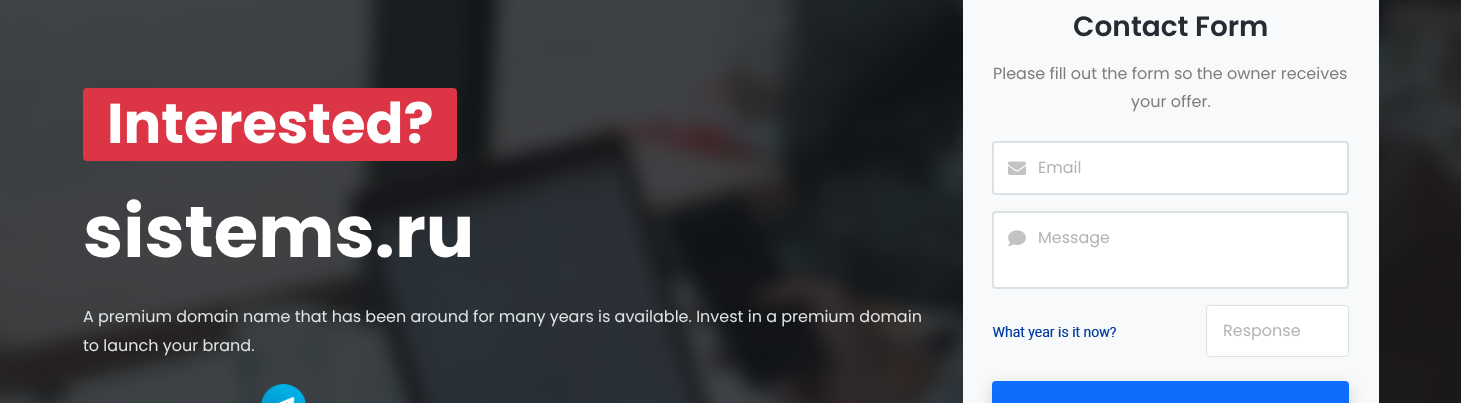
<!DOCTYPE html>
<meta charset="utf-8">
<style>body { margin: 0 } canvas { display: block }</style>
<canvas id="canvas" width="1461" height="403"></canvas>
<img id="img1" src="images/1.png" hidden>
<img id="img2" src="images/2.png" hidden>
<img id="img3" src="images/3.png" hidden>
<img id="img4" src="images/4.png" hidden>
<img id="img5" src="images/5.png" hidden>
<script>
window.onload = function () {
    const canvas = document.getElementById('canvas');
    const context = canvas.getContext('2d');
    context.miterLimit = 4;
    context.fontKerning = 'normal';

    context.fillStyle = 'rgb(255, 255, 255)';
    context.fillRect(0, 0, 1461, 403);
    context.drawImage(document.getElementById('img1'), 0, 0, 1461, 403);
    context.fillStyle = 'rgb(220, 53, 69)';
    context.beginPath();
    context.roundRect(83, 88, 374, 73, 4);
    context.fill();
    context.drawImage(document.getElementById('img2'), 261, 384, 45, 19);
    context.fillStyle = 'rgb(248, 249, 250)';
    context.fillRect(963, 0, 416, 403);
    context.fillStyle = 'rgb(255, 255, 255)';
    context.beginPath();
    context.roundRect(993, 142, 355, 52, 3);
    context.fill();
    context.strokeStyle = 'rgb(218, 225, 227)';
    context.lineWidth = 2;
    context.stroke();
    context.drawImage(document.getElementById('img3'), 1008, 161, 18, 14);
    context.beginPath();
    context.roundRect(993, 212, 355, 76, 3);
    context.fill();
    context.stroke();
    context.drawImage(document.getElementById('img4'), 1008, 230, 18, 17);
    context.drawImage(document.getElementById('img5'), 992, 326, 124, 14);
    context.beginPath();
    context.roundRect(1206.5, 305.5, 142, 51, 3.5);
    context.fill();
    context.lineWidth = 1;
    context.stroke();
    context.fillStyle = 'rgba(0, 0, 0, 0.15)';
    context.filter = 'blur(7.5px)';
    context.beginPath();
    context.roundRect(992, 386, 357, 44, 4);
    context.fill();
    context.filter = 'none';
    context.fillStyle = 'rgb(13, 110, 253)';
    context.beginPath();
    context.roundRect(993, 382, 355, 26, 3);
    context.fill();
    context.strokeStyle = 'rgb(13, 110, 253)';
    context.lineWidth = 2;
    context.stroke();
    context.font = 'bold 56px Poppins';
    context.fillStyle = 'rgb(255, 255, 255)';
    context.fillText('Interested?', 107, 143);
    context.font = 'bold 72px Poppins';
    context.fillText('sistems.ru', 83, 257);
    context.font = '16px Poppins';
    context.fillStyle = 'rgb(222, 227, 228)';
    context.fillText('A premium domain name that has been around for many years is available. Invest in a premium domain', 83, 322);
    context.fillText('to launch your brand.', 83, 351);
    context.font = '600 28px Poppins';
    context.fillStyle = 'rgb(37, 43, 51)';
    context.fillText('Contact Form', 1073, 36);
    context.font = '16px Poppins';
    context.fillStyle = 'rgb(124, 125, 125)';
    context.fillText('Please fill out the form so the owner receives', 993, 79);
    context.fillText('your offer.', 1131, 107);
    context.fillStyle = 'rgb(177, 180, 182)';
    context.fillText('Email', 1038, 173);
    context.fillText('Message', 1038, 243);
    context.fillText('Response', 1223, 336);
};
</script>
